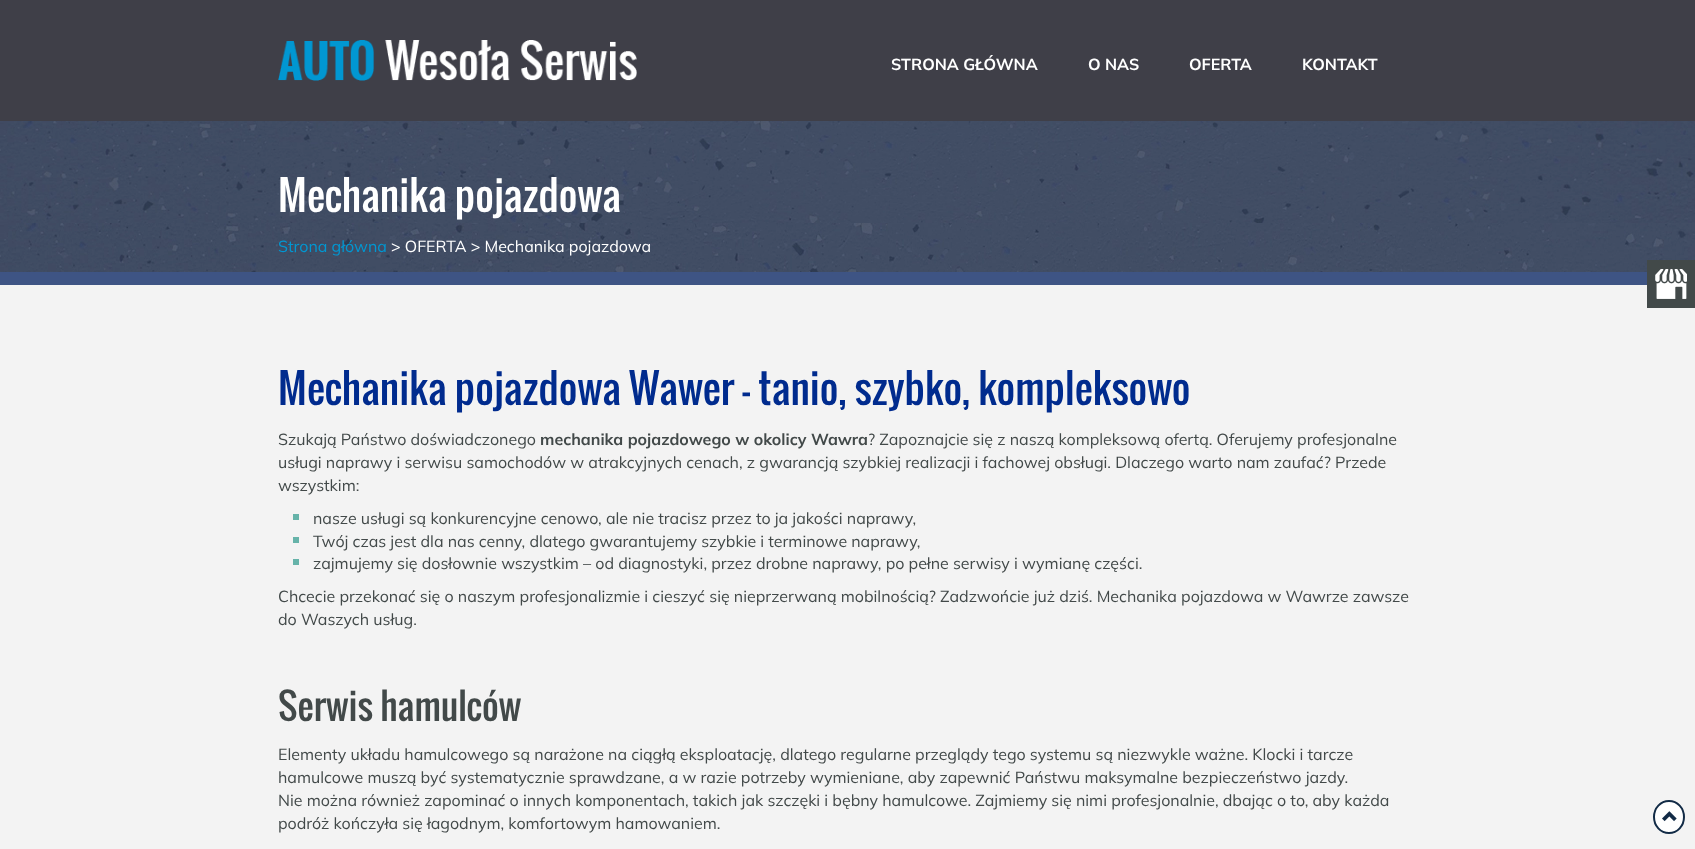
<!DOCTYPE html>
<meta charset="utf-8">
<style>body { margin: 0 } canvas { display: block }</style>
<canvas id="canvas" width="1695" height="849"></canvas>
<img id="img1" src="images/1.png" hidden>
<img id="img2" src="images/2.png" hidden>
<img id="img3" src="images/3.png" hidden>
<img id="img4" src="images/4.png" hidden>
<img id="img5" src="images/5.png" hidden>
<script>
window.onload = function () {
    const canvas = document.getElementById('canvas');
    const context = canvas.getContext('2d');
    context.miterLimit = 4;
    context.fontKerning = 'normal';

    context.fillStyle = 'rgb(63, 63, 72)';
    context.fillRect(0, 0, 1695, 849);
    context.drawImage(document.getElementById('img1'), 278, 40, 359, 41);
    context.drawImage(document.getElementById('img2'), 0, 121, 1695, 102);
    context.drawImage(document.getElementById('img3'), 0, 223, 1695, 49);
    context.fillStyle = 'rgb(62, 84, 132)';
    context.fillRect(0, 272, 1647, 13);
    context.fillStyle = 'rgb(243, 243, 243)';
    context.fillRect(0, 285, 1695, 564);
    context.fillStyle = 'rgb(102, 179, 169)';
    context.fillRect(293, 514, 6, 6);
    context.fillRect(293, 537, 6, 6);
    context.fillRect(293, 559, 6, 6);
    context.fillStyle = 'rgb(66, 73, 73)';
    context.fillRect(1647, 260, 48, 48);
    context.drawImage(document.getElementById('img4'), 1655, 269, 32, 30);
    context.fillStyle = 'rgb(255, 255, 255)';
    context.beginPath();
    context.ellipse(1669, 817, 16, 17, 0, 0, 2 * Math.PI);
    context.fill();
    context.beginPath();
    context.moveTo(1669, 801);
    context.bezierCurveTo(1677.5, 801, 1684, 808, 1684, 817);
    context.bezierCurveTo(1684, 826, 1677.5, 833, 1669, 833);
    context.bezierCurveTo(1660.5, 833, 1654, 826, 1654, 817);
    context.bezierCurveTo(1654, 808, 1660.5, 801, 1669, 801);
    context.closePath();
    context.strokeStyle = 'rgb(18, 43, 70)';
    context.lineWidth = 2;
    context.stroke();
    context.drawImage(document.getElementById('img5'), 1662, 811, 15, 11);
    context.font = 'bold 16px Mulish';
    context.fillText('STRONA GŁÓWNA', 891, 70);
    context.fillText('O NAS', 1088, 70);
    context.fillText('OFERTA', 1189, 70);
    context.fillText('KONTAKT', 1302, 70);
    context.font = '40px Oswald';
    context.fillText('Mechanika pojazdowa', 278, 212);
    context.font = '16px Mulish';
    context.fillStyle = 'rgb(1, 151, 210)';
    context.fillText('Strona główna', 278, 252);
    context.fillStyle = 'rgb(255, 255, 255)';
    context.fillText('> OFERTA > Mechanika pojazdowa', 391, 252);
    context.font = '40px Oswald';
    context.fillStyle = 'rgb(0, 43, 142)';
    context.fillText('Mechanika pojazdowa Wawer – tanio, szybko, kompleksowo', 278, 405);
    context.font = '16px Mulish';
    context.fillStyle = 'rgb(66, 73, 73)';
    context.fillText('Szukają Państwo doświadczonego', 278, 445);
    context.font = 'bold 16px Mulish';
    context.fillText('mechanika pojazdowego w okolicy Wawra', 540, 445);
    context.font = '16px Mulish';
    context.fillText('? Zapoznajcie się z naszą kompleksową ofertą. Oferujemy profesjonalne', 868, 445);
    context.fillText('usługi naprawy i serwisu samochodów w atrakcyjnych cenach, z gwarancją szybkiej realizacji i fachowej obsługi. Dlaczego warto nam zaufać? Przede', 278, 468);
    context.fillText('wszystkim:', 278, 491);
    context.fillText('nasze usługi są konkurencyjne cenowo, ale nie tracisz przez to ja jakości naprawy,', 313, 524);
    context.fillText('Twój czas jest dla nas cenny, dlatego gwarantujemy szybkie i terminowe naprawy,', 313, 547);
    context.fillText('zajmujemy się dosłownie wszystkim – od diagnostyki, przez drobne naprawy, po pełne serwisy i wymianę części.', 313, 569);
    context.fillText('Chcecie przekonać się o naszym profesjonalizmie i cieszyć się nieprzerwaną mobilnością? Zadzwońcie już dziś. Mechanika pojazdowa w Wawrze zawsze', 278, 602);
    context.fillText('do Waszych usług.', 278, 625);
    context.font = '36px Oswald';
    context.fillText('Serwis hamulców', 278, 721);
    context.font = '16px Mulish';
    context.fillText('Elementy układu hamulcowego są narażone na ciągłą eksploatację, dlatego regularne przeglądy tego systemu są niezwykle ważne. Klocki i tarcze', 278, 760);
    context.fillText('hamulcowe muszą być systematycznie sprawdzane, a w razie potrzeby wymieniane, aby zapewnić Państwu maksymalne bezpieczeństwo jazdy.', 278, 783);
    context.fillText('Nie można również zapominać o innych komponentach, takich jak szczęki i bębny hamulcowe. Zajmiemy się nimi profesjonalnie, dbając o to, aby każda', 278, 806);
    context.fillText('podróż kończyła się łagodnym, komfortowym hamowaniem.', 278, 829);
};
</script>
